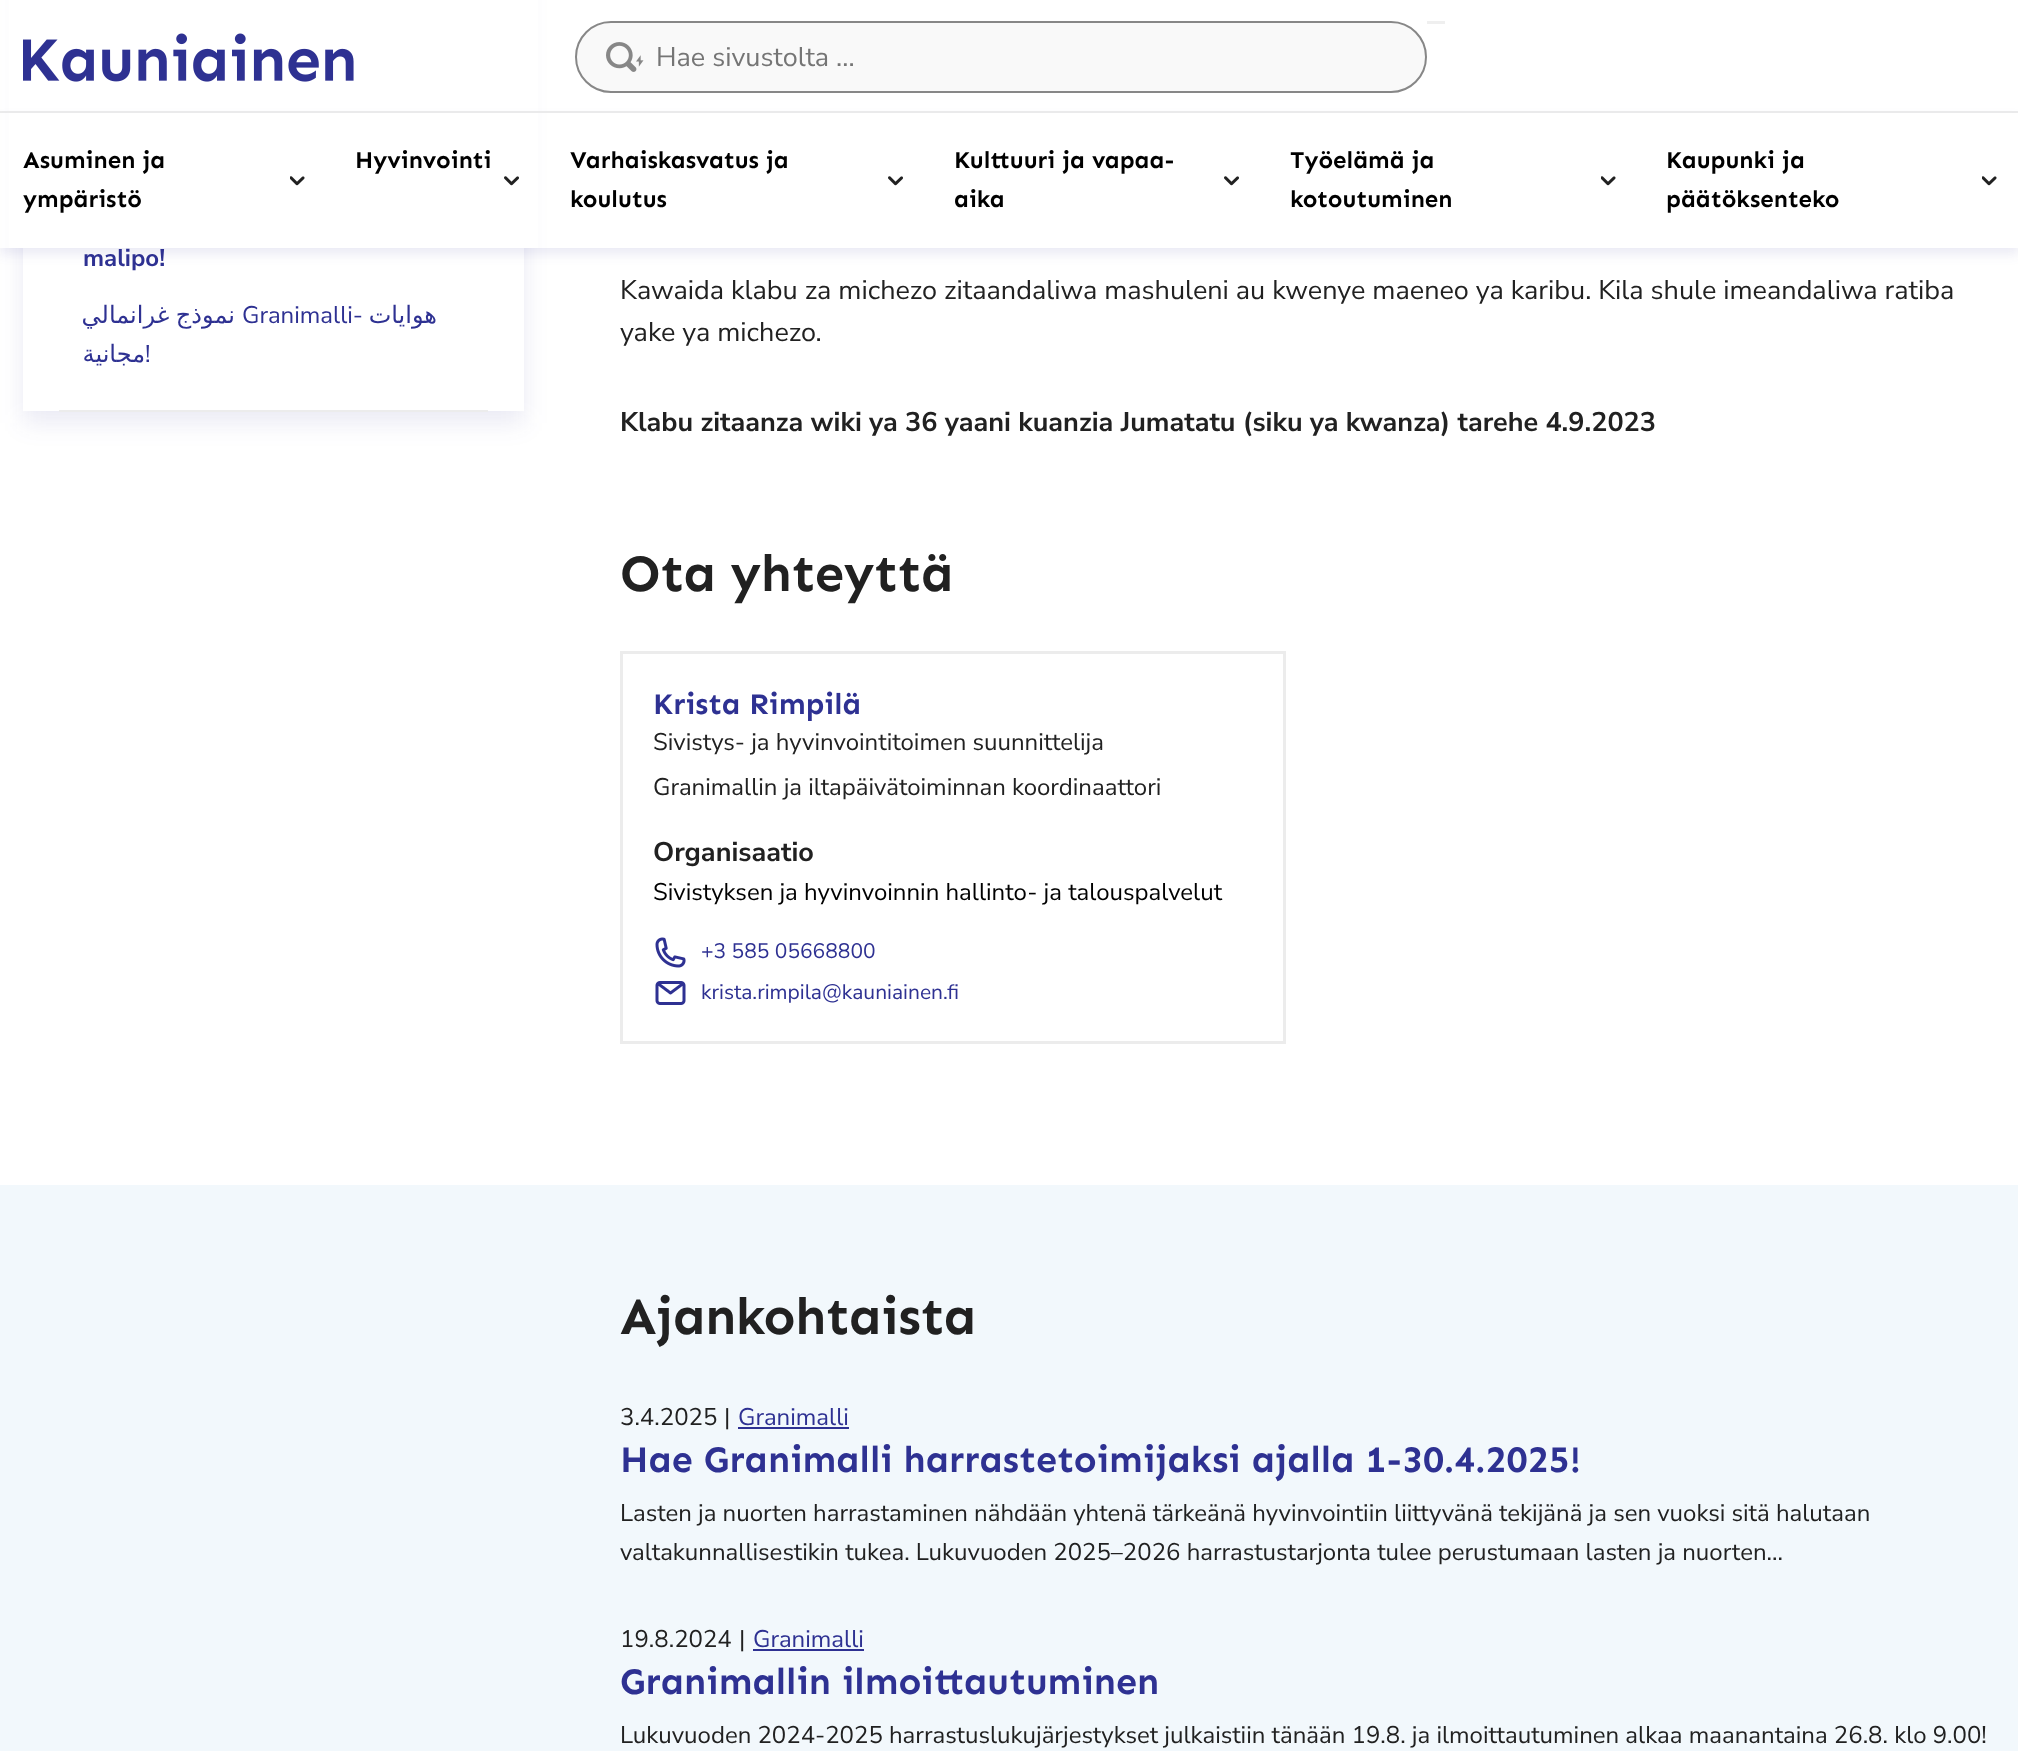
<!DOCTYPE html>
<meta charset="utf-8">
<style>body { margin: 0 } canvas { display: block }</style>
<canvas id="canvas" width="2018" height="1751"></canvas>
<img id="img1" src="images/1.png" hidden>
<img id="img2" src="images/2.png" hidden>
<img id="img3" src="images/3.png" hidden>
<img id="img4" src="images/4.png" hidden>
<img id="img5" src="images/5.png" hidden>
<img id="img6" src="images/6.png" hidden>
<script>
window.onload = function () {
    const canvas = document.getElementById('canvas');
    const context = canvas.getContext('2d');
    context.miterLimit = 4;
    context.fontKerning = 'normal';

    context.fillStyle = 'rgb(255, 255, 255)';
    context.fillRect(0, 0, 2018, 1751);
    context.save();
    context.beginPath();
    context.moveTo(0, 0);
    context.lineTo(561, 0);
    context.lineTo(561, 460);
    context.lineTo(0, 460);
    context.closePath();
    context.moveTo(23, -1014);
    context.lineTo(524, -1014);
    context.lineTo(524, 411);
    context.lineTo(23, 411);
    context.closePath();
    context.clip('evenodd');
    context.fillStyle = 'rgba(46, 49, 146, 0.1)';
    context.filter = 'blur(12px)';
    context.beginPath();
    context.rect(23, -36, 501, 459);
    context.fill();
    context.filter = 'none';
    context.restore();
    context.fillRect(9, 0, 529, 248);
    context.fillStyle = 'rgb(236, 236, 236)';
    context.fillRect(0, 111, 2018, 2);
    context.drawImage(document.getElementById('img1'), 23, 33, 331, 49);
    context.fillStyle = 'rgb(239, 239, 239)';
    context.fillRect(1427, 21, 18, 3);
    context.fillStyle = 'rgb(249, 249, 249)';
    context.beginPath();
    context.roundRect(575, 21, 852, 72, 36);
    context.fill();
    context.drawImage(document.getElementById('img2'), 606, 42, 38, 30);
    context.beginPath();
    context.roundRect(576, 22, 850, 70, 35);
    context.strokeStyle = 'rgb(135, 135, 135)';
    context.lineWidth = 2;
    context.stroke();
    context.save();
    context.beginPath();
    context.moveTo(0, 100);
    context.lineTo(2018, 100);
    context.lineTo(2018, 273);
    context.lineTo(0, 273);
    context.closePath();
    context.moveTo(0, 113);
    context.lineTo(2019, 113);
    context.lineTo(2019, 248);
    context.lineTo(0, 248);
    context.closePath();
    context.clip('evenodd');
    context.fillStyle = 'rgba(46, 49, 146, 0.1)';
    context.filter = 'blur(6px)';
    context.beginPath();
    context.rect(0, 119, 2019, 135);
    context.fill();
    context.filter = 'none';
    context.restore();
    context.drawImage(document.getElementById('img3'), 290, 176, 15, 10);
    context.drawImage(document.getElementById('img4'), 504, 176, 15, 10);
    context.drawImage(document.getElementById('img4'), 888, 176, 15, 10);
    context.drawImage(document.getElementById('img4'), 1224, 176, 15, 10);
    context.drawImage(document.getElementById('img3'), 1601, 176, 15, 10);
    context.drawImage(document.getElementById('img3'), 1982, 176, 15, 10);
    context.fillStyle = 'rgb(236, 236, 236)';
    context.fillRect(59, 410, 429, 2);
    context.strokeStyle = 'rgb(236, 236, 236)';
    context.lineWidth = 3;
    context.strokeRect(621.5, 652.5, 663, 390);
    context.drawImage(document.getElementById('img5'), 655, 937, 31, 31);
    context.drawImage(document.getElementById('img6'), 655, 981, 31, 24);
    context.fillStyle = 'rgb(242, 248, 252)';
    context.fillRect(0, 1185, 2018, 566);
    context.fillStyle = 'rgb(46, 49, 146)';
    context.fillRect(738, 1427, 111, 2);
    context.fillRect(753, 1649, 111, 2);
    context.font = '27px Nunito Sans';
    context.fillStyle = 'rgb(117, 117, 117)';
    context.fillText('Hae sivustolta ...', 656, 66);
    context.font = 'bold 24px Sen';
    context.fillStyle = 'rgb(0, 0, 0)';
    context.fillText('Asuminen ja', 23, 168);
    context.fillText('ympäristö', 23, 207);
    context.fillText('Hyvinvointi', 355, 168);
    context.fillText('Varhaiskasvatus ja', 570, 168);
    context.fillText('koulutus', 570, 207);
    context.fillText('Kulttuuri ja vapaa-', 954, 168);
    context.fillText('aika', 954, 207);
    context.fillText('Työelämä ja', 1290, 168);
    context.fillText('kotoutuminen', 1290, 207);
    context.fillText('Kaupunki ja', 1666, 168);
    context.fillText('päätöksenteko', 1666, 207);
    context.font = 'bold 24px Nunito Sans';
    context.fillStyle = 'rgb(46, 49, 146)';
    context.fillText('malipo!', 83, 266);
    context.wordSpacing = '-1px';
    context.direction = 'rtl';
    context.font = '24px DejaVu Sans';
    context.fillText('نموذج غرانمالي', 235, 323);
    context.wordSpacing = '0px';
    context.direction = 'ltr';
    context.font = '24px Nunito Sans';
    context.fillText('Granimalli-', 242, 323);
    context.direction = 'rtl';
    context.font = '24px DejaVu Sans';
    context.fillText('هوایات', 437, 323);
    context.fillText('مجانیة', 145, 362);
    context.direction = 'ltr';
    context.font = '24px Nunito Sans';
    context.fillText('!', 145, 362);
    context.font = '27px Nunito Sans';
    context.fillStyle = 'rgb(33, 33, 33)';
    context.fillText('Kawaida klabu za michezo zitaandaliwa mashuleni au kwenye maeneo ya karibu. Kila shule imeandaliwa ratiba', 620, 299);
    context.fillText('yake ya michezo.', 620, 341);
    context.font = 'bold 27px Nunito Sans';
    context.fillText('Klabu zitaanza wiki ya 36 yaani kuanzia Jumatatu (siku ya kwanza) tarehe 4.9.2023', 620, 431);
    context.letterSpacing = '-0.4px';
    context.font = 'bold 52.5px Sen';
    context.fillText('Ota yhteyttä', 620, 591);
    context.letterSpacing = '0px';
    context.font = 'bold 30px Sen';
    context.fillStyle = 'rgb(46, 49, 146)';
    context.fillText('Krista Rimpilä', 653, 714);
    context.font = '24px Nunito Sans';
    context.fillStyle = 'rgb(33, 33, 33)';
    context.fillText('Sivistys- ja hyvinvointitoimen suunnittelija', 653, 750);
    context.fillText('Granimallin ja iltapäivätoiminnan koordinaattori', 653, 795);
    context.font = 'bold 27px Nunito Sans';
    context.fillText('Organisaatio', 653, 861);
    context.font = '24px Nunito Sans';
    context.fillStyle = 'rgb(0, 0, 0)';
    context.fillText('Sivistyksen ja hyvinvoinnin hallinto- ja talouspalvelut', 653, 900);
    context.font = '21px Nunito Sans';
    context.fillStyle = 'rgb(46, 49, 146)';
    context.fillText('+3 585 05668800', 701, 958);
    context.fillText('krista.rimpila@kauniainen.fi', 701, 999);
    context.letterSpacing = '-0.4px';
    context.font = 'bold 52.5px Sen';
    context.fillStyle = 'rgb(33, 33, 33)';
    context.fillText('Ajankohtaista', 620, 1334);
    context.letterSpacing = '0px';
    context.font = '24px Nunito Sans';
    context.fillText('3.4.2025', 620, 1425);
    context.fillText('|', 724, 1425);
    context.fillStyle = 'rgb(46, 49, 146)';
    context.fillText('Granimalli', 738, 1425);
    context.font = 'bold 37.5px Sen';
    context.fillText('Hae Granimalli harrastetoimijaksi ajalla 1-30.4.2025!', 620, 1472);
    context.font = '24px Nunito Sans';
    context.fillStyle = 'rgb(33, 33, 33)';
    context.fillText('Lasten ja nuorten harrastaminen nähdään yhtenä tärkeänä hyvinvointiin liittyvänä tekijänä ja sen vuoksi sitä halutaan', 620, 1521);
    context.fillText('valtakunnallisestikin tukea. Lukuvuoden 2025–2026 harrastustarjonta tulee perustumaan lasten ja nuorten…', 620, 1560);
    context.fillText('19.8.2024', 620, 1647);
    context.fillText('|', 739, 1647);
    context.fillStyle = 'rgb(46, 49, 146)';
    context.fillText('Granimalli', 753, 1647);
    context.font = 'bold 37.5px Sen';
    context.fillText('Granimallin ilmoittautuminen', 620, 1694);
    context.font = '24px Nunito Sans';
    context.fillStyle = 'rgb(33, 33, 33)';
    context.fillText('Lukuvuoden 2024-2025 harrastuslukujärjestykset julkaistiin tänään 19.8. ja ilmoittautuminen alkaa maanantaina 26.8. klo 9.00!', 620, 1743);
};
</script>
